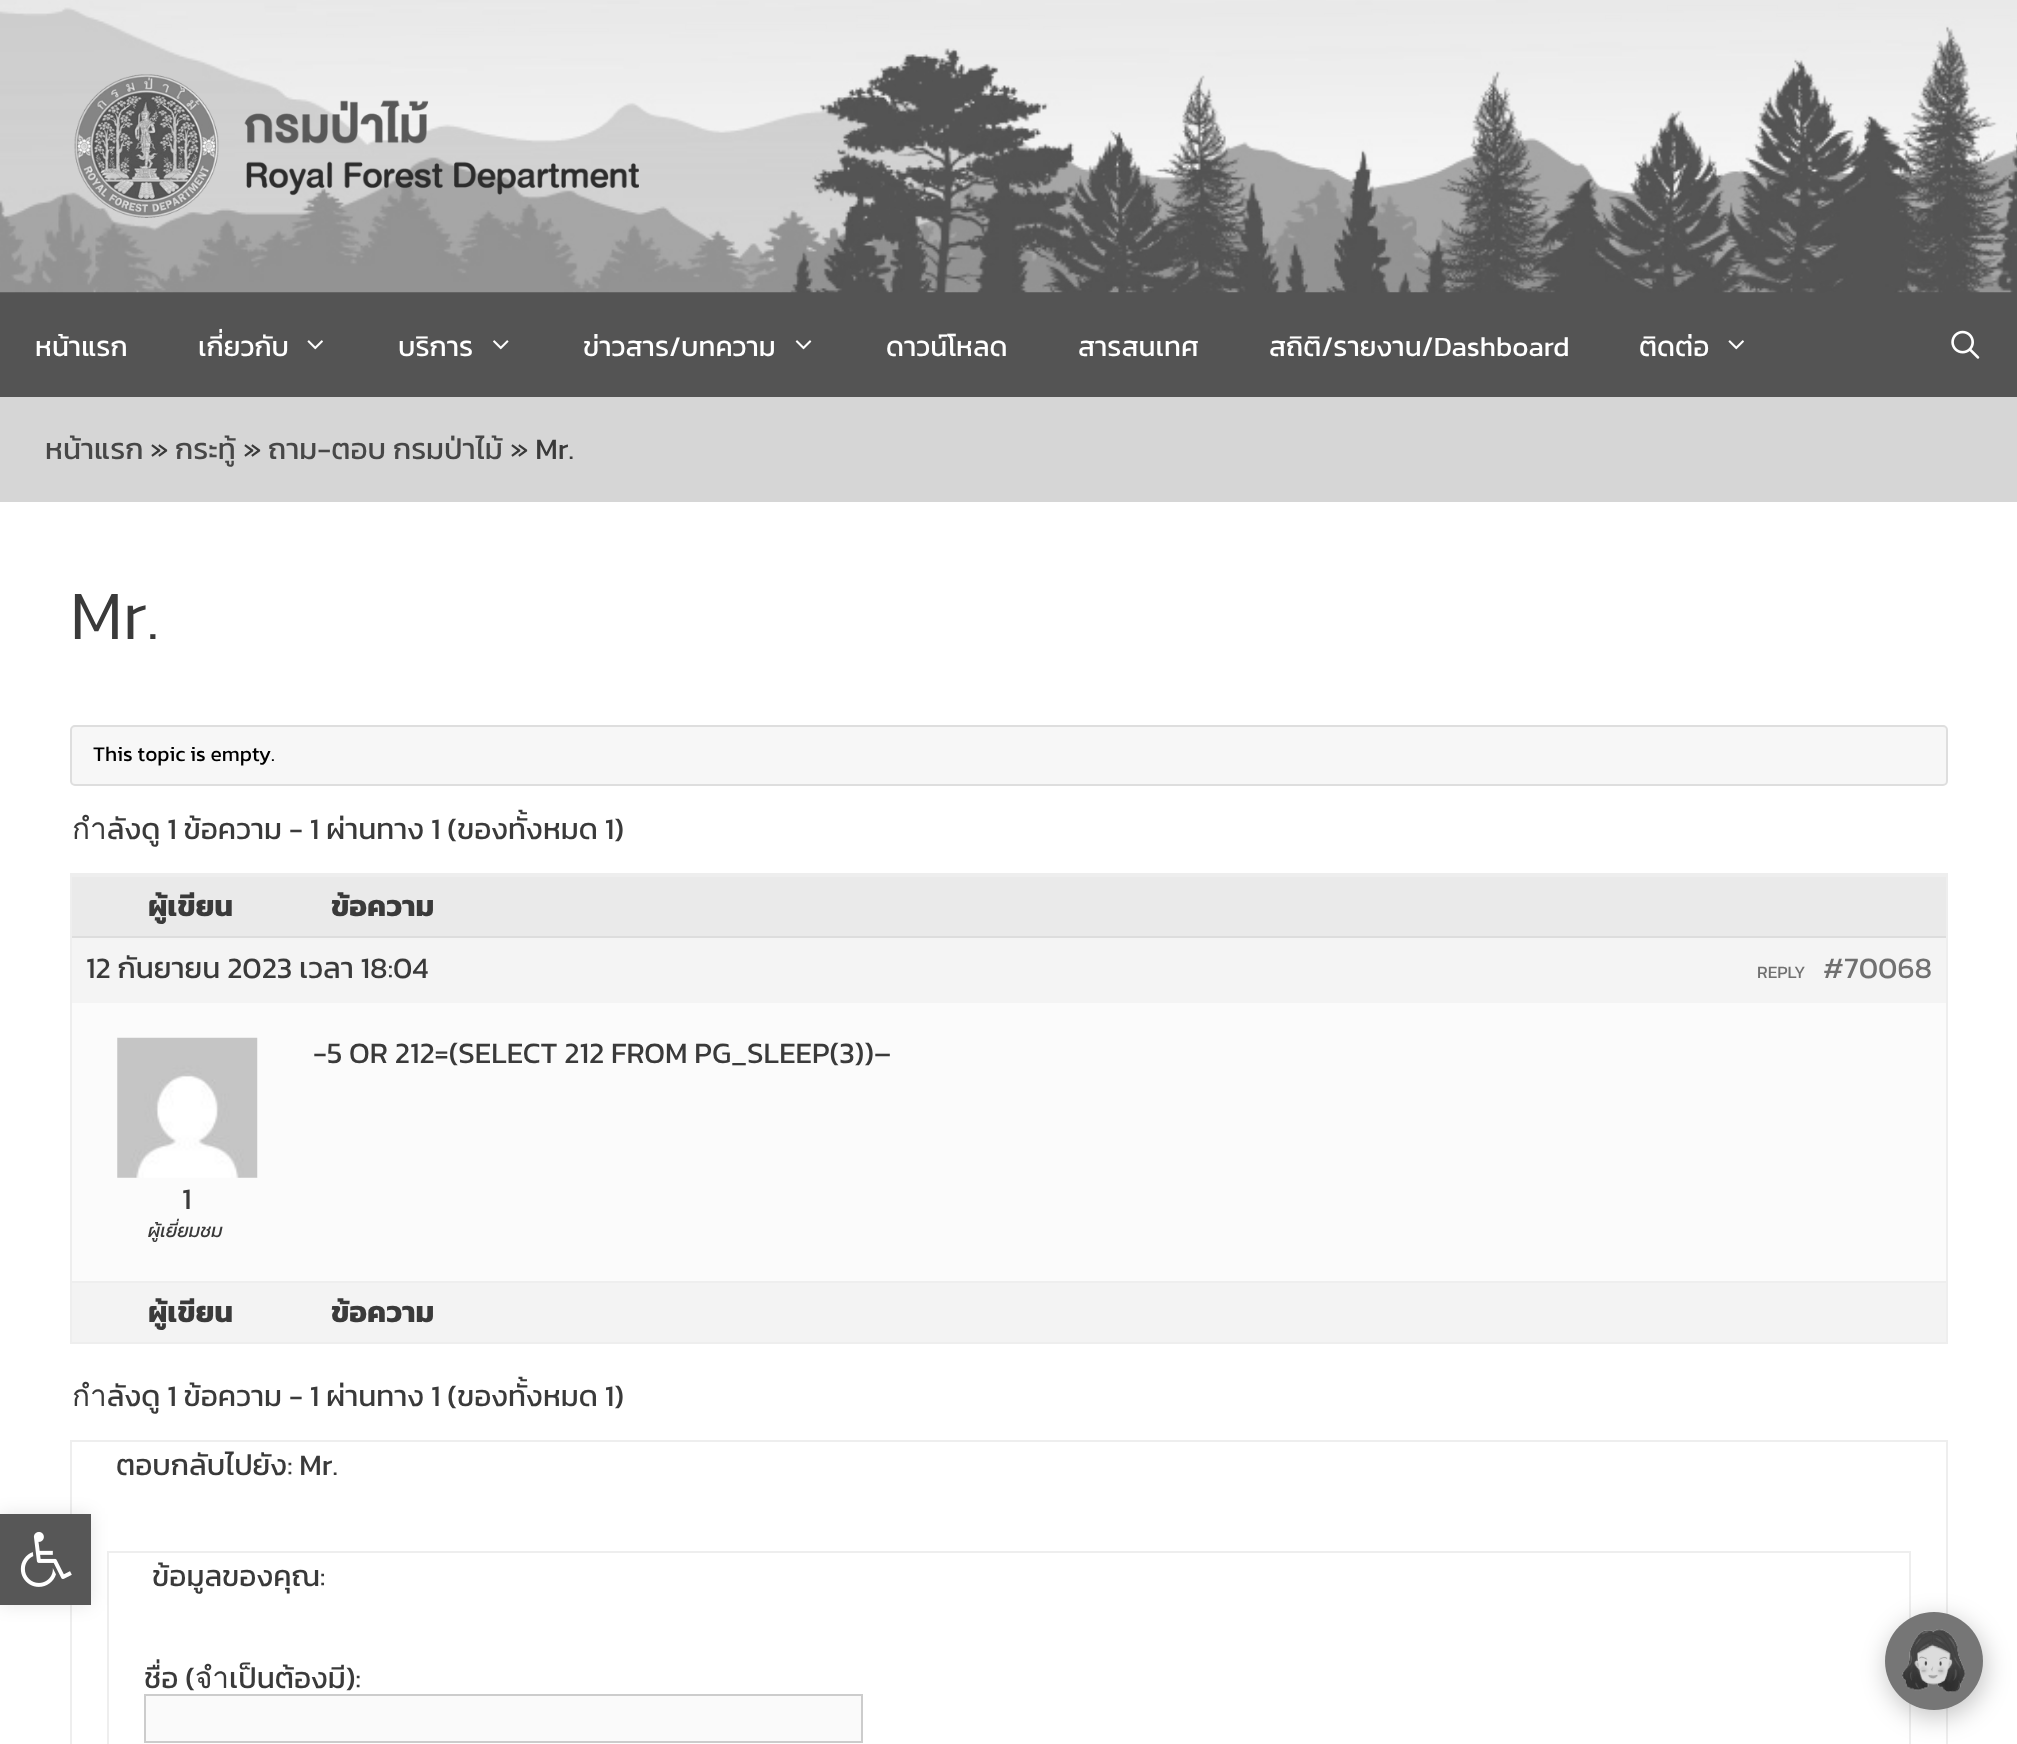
<!DOCTYPE html>
<meta charset="utf-8">
<style>body { margin: 0 } canvas { display: block }</style>
<canvas id="canvas" width="2017" height="1744"></canvas>
<img id="img1" src="images/1.png" hidden>
<img id="img2" src="images/2.png" hidden>
<img id="img3" src="images/3.png" hidden>
<img id="img4" src="images/4.png" hidden>
<img id="img5" src="images/5.png" hidden>
<img id="img6" src="images/6.png" hidden>
<img id="img7" src="images/7.png" hidden>
<img id="img8" src="images/8.png" hidden>
<img id="img9" src="images/9.png" hidden>
<script>
window.onload = function () {
    const canvas = document.getElementById('canvas');
    const context = canvas.getContext('2d');
    context.miterLimit = 4;
    context.fontKerning = 'normal';

    context.fillStyle = 'rgb(214, 214, 214)';
    context.fillRect(0, 0, 2017, 1744);
    context.fillStyle = 'rgb(84, 84, 84)';
    context.fillRect(0, 292, 2017, 105);
    context.drawImage(document.getElementById('img1'), 0, 0, 2017, 293);
    context.drawImage(document.getElementById('img2'), 74, 74, 565, 144);
    context.drawImage(document.getElementById('img3'), 307, 340, 16, 10);
    context.drawImage(document.getElementById('img4'), 493, 340, 16, 10);
    context.drawImage(document.getElementById('img5'), 795, 340, 17, 10);
    context.drawImage(document.getElementById('img3'), 1728, 340, 16, 10);
    context.drawImage(document.getElementById('img6'), 1951, 330, 29, 29);
    context.fillStyle = 'rgb(255, 255, 255)';
    context.fillRect(0, 502, 2017, 1242);
    context.strokeStyle = 'rgb(238, 238, 238)';
    context.lineWidth = 2;
    context.strokeRect(71, 1441, 1876, 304);
    context.strokeRect(108, 1552, 1802, 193);
    context.fillStyle = 'rgba(0, 0, 0, 0.1)';
    context.filter = 'blur(9px)';
    context.beginPath();
    context.rect(0, 1514, 91, 91);
    context.fill();
    context.filter = 'none';
    context.fillStyle = 'rgb(87, 87, 87)';
    context.fillRect(0, 1514, 91, 91);
    context.drawImage(document.getElementById('img7'), 20, 1531, 52, 56);
    context.fillStyle = 'rgb(247, 247, 247)';
    context.beginPath();
    context.roundRect(71, 726, 1876, 59, 4);
    context.fill();
    context.strokeStyle = 'rgb(222, 222, 222)';
    context.stroke();
    context.strokeStyle = 'rgb(238, 238, 238)';
    context.strokeRect(71, 874, 1876, 469);
    context.fillStyle = 'rgb(234, 234, 234)';
    context.fillRect(72, 877, 1874, 59);
    context.fillStyle = 'rgb(238, 238, 238)';
    context.fillRect(72, 875, 1874, 2);
    context.fillStyle = 'rgb(244, 244, 244)';
    context.fillRect(72, 938, 1874, 65);
    context.fillStyle = 'rgb(221, 221, 221)';
    context.fillRect(72, 936, 1874, 2);
    context.fillStyle = 'rgb(251, 251, 251)';
    context.fillRect(72, 1003, 1874, 278);
    context.drawImage(document.getElementById('img8'), 117, 1037, 141, 141);
    context.fillStyle = 'rgb(243, 243, 243)';
    context.fillRect(72, 1283, 1874, 59);
    context.fillStyle = 'rgb(238, 238, 238)';
    context.fillRect(72, 1281, 1874, 2);
    context.fillStyle = 'rgb(250, 250, 250)';
    context.beginPath();
    context.rect(145, 1695, 717, 47);
    context.fill();
    context.strokeStyle = 'rgb(204, 204, 204)';
    context.stroke();
    context.fillStyle = 'rgba(0, 0, 0, 0.24)';
    context.filter = 'blur(13px)';
    context.beginPath();
    context.roundRect(1887, 1619, 98, 98, 49);
    context.fill();
    context.filter = 'none';
    context.fillStyle = 'rgb(118, 118, 118)';
    context.beginPath();
    context.arc(1934, 1661, 49, 0, 2 * Math.PI);
    context.fill();
    context.drawImage(document.getElementById('img9'), 1902, 1629, 64, 64);
    context.font = '28px Kanit';
    context.fillStyle = 'rgb(255, 255, 255)';
    context.fillText('หน้าแรก', 35, 356);
    context.fillText('เกี่ยวกับ', 198, 356);
    context.fillText('บริการ', 398, 356);
    context.fillText('ข่าวสาร/บทความ', 583, 356);
    context.fillText('ดาวน์โหลด', 886, 356);
    context.fillText('สารสนเทศ', 1078, 356);
    context.fillText('สถิติ/รายงาน/Dashboard', 1269, 356);
    context.fillText('ติดต่อ', 1639, 356);
    context.font = '29.75px Kanit';
    context.fillStyle = 'rgb(71, 71, 71)';
    context.fillText('หน้าแรก', 45, 459);
    context.fillStyle = 'rgb(58, 58, 58)';
    context.fillText('»', 150, 459);
    context.fillStyle = 'rgb(71, 71, 71)';
    context.fillText('กระทู้', 175, 459);
    context.fillStyle = 'rgb(58, 58, 58)';
    context.fillText('»', 243, 459);
    context.fillStyle = 'rgb(71, 71, 71)';
    context.fillText('ถาม-ตอบ กรมป่าไม้', 268, 459);
    context.fillStyle = 'rgb(58, 58, 58)';
    context.fillText('» Mr.', 510, 459);
    context.font = '300 70px Kanit';
    context.fillText('Mr.', 70, 639);
    context.font = '21px Kanit';
    context.fillStyle = 'rgb(0, 0, 0)';
    context.fillText('This topic is empty.', 93, 761);
    context.save();
    context.beginPath();
    context.rect(70, 716, 1878, 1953);
    context.clip();
    context.font = '29.75px Kanit';
    context.fillStyle = 'rgb(58, 58, 58)';
    context.fillText('กำลังดู 1 ข้อความ - 1 ผ่านทาง 1 (ของทั้งหมด 1)', 72, 839);
    context.restore();
    context.font = 'bold 29.75px Kanit';
    context.fillStyle = 'rgb(58, 58, 58)';
    context.fillText('ผู้เขียน', 148, 916);
    context.fillText('ข้อความ', 331, 916);
    context.font = '29.75px Kanit';
    context.fillText('12 กันยายน 2023 เวลา 18:04', 86, 978);
    context.font = '17.5px Kanit';
    context.fillStyle = 'rgb(112, 112, 112)';
    context.fillText('REPLY', 1757, 978);
    context.font = '29.75px Kanit';
    context.fillText('#70068', 1823, 978);
    context.fillStyle = 'rgb(58, 58, 58)';
    context.fillText('-5 OR 212=(SELECT 212 FROM PG_SLEEP(3))–', 313, 1063);
    context.fillText('1', 182, 1209);
    context.font = 'italic 19px Kanit';
    context.fillText('ผู้เยี่ยมชม', 148, 1237);
    context.font = 'bold 29.75px Kanit';
    context.fillText('ผู้เขียน', 148, 1322);
    context.fillText('ข้อความ', 331, 1322);
    context.save();
    context.beginPath();
    context.rect(70, 716, 1878, 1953);
    context.clip();
    context.font = '29.75px Kanit';
    context.fillText('กำลังดู 1 ข้อความ - 1 ผ่านทาง 1 (ของทั้งหมด 1)', 72, 1406);
    context.restore();
    context.font = '29.75px Kanit';
    context.fillText('ตอบกลับไปยัง: Mr.', 116, 1475);
    context.fillText('ข้อมูลของคุณ:', 152, 1586);
    context.fillText('ชื่อ (จำเป็นต้องมี):', 144, 1688);
};
</script>
